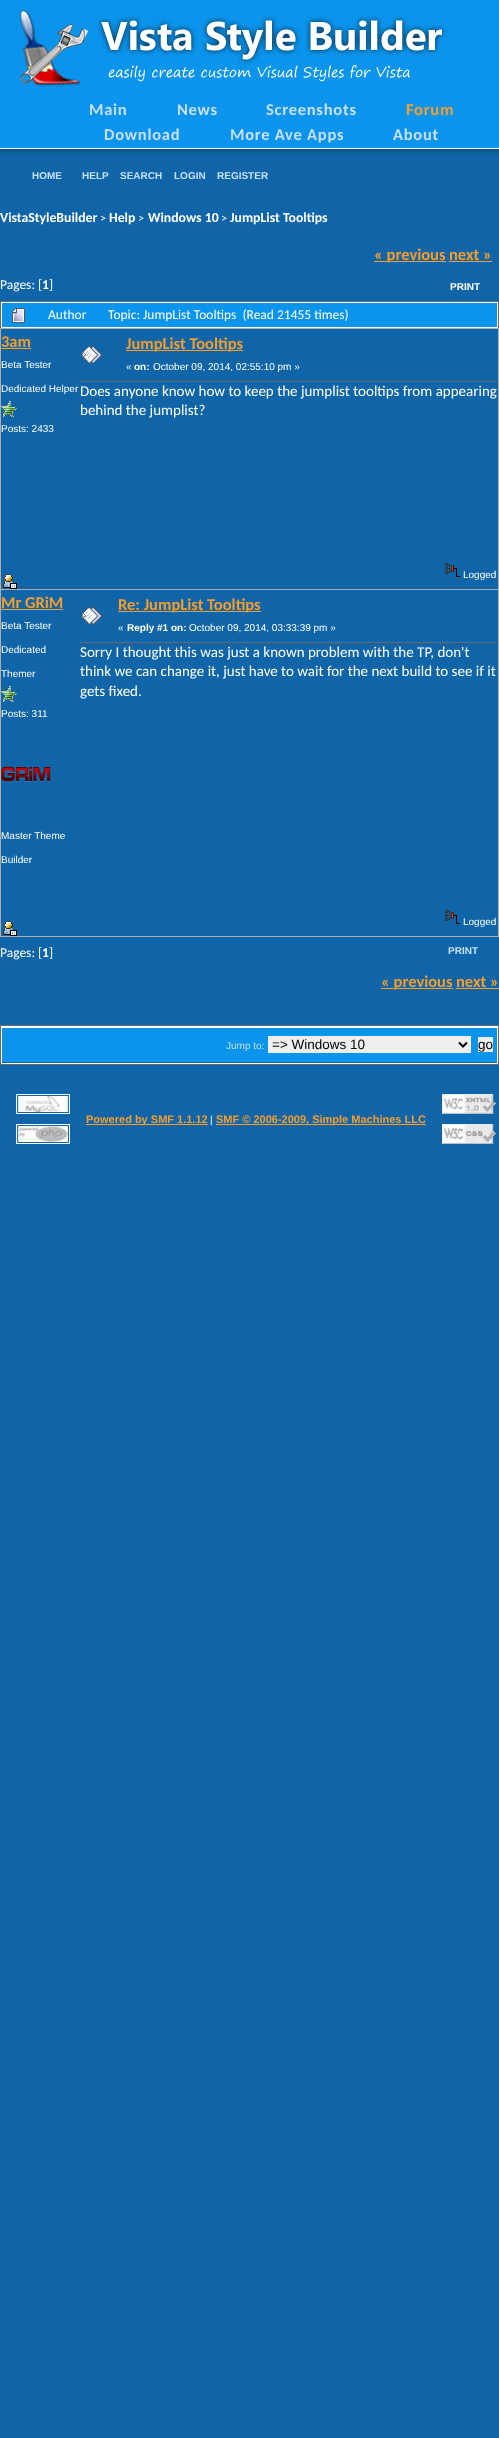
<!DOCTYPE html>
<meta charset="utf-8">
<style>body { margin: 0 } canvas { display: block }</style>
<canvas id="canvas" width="499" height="2438"></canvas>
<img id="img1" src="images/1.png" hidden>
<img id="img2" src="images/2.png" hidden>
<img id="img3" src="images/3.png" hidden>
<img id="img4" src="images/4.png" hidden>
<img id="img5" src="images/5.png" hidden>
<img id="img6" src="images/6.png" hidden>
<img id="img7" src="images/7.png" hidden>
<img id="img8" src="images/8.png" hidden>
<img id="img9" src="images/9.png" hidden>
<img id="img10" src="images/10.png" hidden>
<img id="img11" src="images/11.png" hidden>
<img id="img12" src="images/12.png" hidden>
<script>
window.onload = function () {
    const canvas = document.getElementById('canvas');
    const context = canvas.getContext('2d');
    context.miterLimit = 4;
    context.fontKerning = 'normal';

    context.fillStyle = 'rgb(15, 101, 167)';
    context.fillRect(0, 0, 499, 2438);
    context.fillStyle = 'rgb(11, 148, 236)';
    context.fillRect(0, 0, 499, 148);
    context.drawImage(document.getElementById('img1'), 0, 148, 499, 14);
    context.drawImage(document.getElementById('img2'), 20, 10, 427, 77);
    context.fillStyle = 'rgb(249, 157, 43)';
    context.fillRect(374, 261, 72, 1);
    context.fillRect(449, 261, 43, 1);
    context.fillStyle = 'rgb(255, 255, 255)';
    context.fillRect(1, 302, 497, 26);
    context.fillStyle = 'rgb(105, 105, 105)';
    context.fillRect(0, 301, 499, 1);
    context.fillRect(498, 301, 1, 27);
    context.fillRect(0, 301, 1, 27);
    context.fillStyle = 'rgb(11, 148, 236)';
    context.fillRect(2, 303, 495, 24);
    context.drawImage(document.getElementById('img3'), 12, 308, 13, 15);
    context.fillStyle = 'rgb(173, 173, 173)';
    context.fillRect(0, 328, 499, 609);
    context.fillStyle = 'rgb(15, 101, 167)';
    context.fillRect(1, 329, 497, 260);
    context.fillStyle = 'rgb(249, 157, 43)';
    context.fillRect(1, 348, 30, 1);
    context.drawImage(document.getElementById('img4'), 1, 401, 16, 16);
    context.drawImage(document.getElementById('img5'), 3, 574, 14, 15);
    context.drawImage(document.getElementById('img6'), 82, 346, 20, 18);
    context.fillRect(126, 350, 117, 1);
    context.fillStyle = 'rgb(102, 102, 102)';
    context.fillRect(80, 381, 418, 1);
    context.drawImage(document.getElementById('img7'), 445, 563, 15, 14);
    context.fillStyle = 'rgb(15, 101, 167)';
    context.fillRect(1, 590, 497, 346);
    context.fillStyle = 'rgb(249, 157, 43)';
    context.fillRect(1, 609, 62, 1);
    context.drawImage(document.getElementById('img4'), 1, 686, 16, 16);
    context.drawImage(document.getElementById('img8'), 1, 766, 50, 17);
    context.drawImage(document.getElementById('img5'), 3, 921, 14, 15);
    context.drawImage(document.getElementById('img6'), 82, 607, 20, 18);
    context.fillRect(118, 611, 143, 1);
    context.fillStyle = 'rgb(102, 102, 102)';
    context.fillRect(80, 642, 418, 1);
    context.drawImage(document.getElementById('img7'), 445, 910, 15, 14);
    context.fillStyle = 'rgb(249, 157, 43)';
    context.fillRect(381, 988, 72, 1);
    context.fillRect(456, 988, 43, 1);
    context.fillStyle = 'rgb(255, 255, 255)';
    context.beginPath();
    context.rect(0.5, 1025.5, 498, 39);
    context.fill();
    context.strokeStyle = 'rgb(105, 105, 105)';
    context.stroke();
    context.fillStyle = 'rgb(11, 148, 236)';
    context.fillRect(2, 1028, 495, 34);
    context.fillStyle = 'rgb(15, 101, 167)';
    context.fillRect(2, 1062, 495, 1);
    context.fillStyle = 'rgb(239, 239, 239)';
    context.fillRect(268, 1036, 203, 17);
    context.beginPath();
    context.moveTo(459, 1042.5);
    context.lineTo(463, 1046.5);
    context.lineTo(467, 1042.5);
    context.strokeStyle = 'rgb(0, 0, 0)';
    context.lineWidth = 2;
    context.stroke();
    context.fillRect(478, 1037, 15, 15);
    context.drawImage(document.getElementById('img9'), 16, 1094, 54, 20);
    context.drawImage(document.getElementById('img10'), 16, 1124, 54, 20);
    context.fillStyle = 'rgb(249, 157, 43)';
    context.fillRect(86, 1124, 122, 1);
    context.fillRect(216, 1124, 210, 1);
    context.drawImage(document.getElementById('img11'), 442, 1094, 54, 20);
    context.drawImage(document.getElementById('img12'), 442, 1124, 54, 20);
    context.letterSpacing = '0.75px';
    context.font = 'bold 16.5px Carlito';
    context.fillStyle = 'rgb(199, 224, 255)';
    context.fillText('Main', 89, 115);
    context.fillText('News', 177, 115);
    context.fillText('Screenshots', 266, 115);
    context.fillStyle = 'rgb(249, 157, 43)';
    context.fillText('Forum', 406, 115);
    context.fillStyle = 'rgb(199, 224, 255)';
    context.fillText('Download', 104, 140);
    context.fillText('More Ave Apps', 230, 140);
    context.fillText('About', 393, 140);
    context.letterSpacing = '0px';
    context.font = 'bold 10px Liberation Sans';
    context.fillText('HOME', 32, 179);
    context.fillText('HELP', 82, 179);
    context.fillText('SEARCH', 120, 179);
    context.fillText('LOGIN', 174, 179);
    context.fillText('REGISTER', 217, 179);
    context.font = 'bold 13.75px Carlito';
    context.fillStyle = 'rgb(255, 255, 255)';
    context.fillText('VistaStyleBuilder', 0, 222);
    context.font = '12px Carlito';
    context.fillText('>', 100, 222);
    context.font = 'bold 13.75px Carlito';
    context.fillText('Help', 109, 222);
    context.font = '12px Carlito';
    context.fillText('>', 138, 222);
    context.font = 'bold 13.75px Carlito';
    context.fillText('Windows 10', 148, 222);
    context.font = '12px Carlito';
    context.fillText('>', 221, 222);
    context.font = 'bold 13.75px Carlito';
    context.fillText('JumpList Tooltips', 230, 222);
    context.font = '13.5px Carlito';
    context.fillText('Pages: [', 0, 289);
    context.font = 'bold 13.5px Carlito';
    context.fillText('1', 42, 289);
    context.font = '13.5px Carlito';
    context.fillText(']', 49, 289);
    context.font = 'bold 16.5px Carlito';
    context.fillStyle = 'rgb(249, 157, 43)';
    context.fillText('« previous', 374, 260);
    context.fillText('next »', 449, 260);
    context.font = 'bold 10px Liberation Sans';
    context.fillStyle = 'rgb(255, 255, 255)';
    context.fillText('PRINT', 450, 290);
    context.font = '13.5px Carlito';
    context.fillText('Author', 48, 319);
    context.fillText('Topic: JumpList Tooltips  (Read 21455 times)', 108, 319);
    context.font = 'bold 16.5px Carlito';
    context.fillStyle = 'rgb(249, 157, 43)';
    context.fillText('3am', 1, 347);
    context.font = '10px Liberation Sans';
    context.fillStyle = 'rgb(255, 255, 255)';
    context.fillText('Beta Tester', 1, 368);
    context.fillText('Dedicated Helper', 1, 392);
    context.fillText('Posts: 2433', 1, 432);
    context.font = 'bold 16.5px Carlito';
    context.fillStyle = 'rgb(249, 157, 43)';
    context.fillText('JumpList Tooltips', 126, 349);
    context.font = '10px Liberation Sans';
    context.fillStyle = 'rgb(255, 255, 255)';
    context.fillText('«', 126, 370);
    context.font = 'bold 10px Liberation Sans';
    context.fillText('on:', 134, 370);
    context.font = '10px Liberation Sans';
    context.fillText('October 09, 2014, 02:55:10 pm »', 153, 370);
    context.font = '15px Carlito';
    context.fillText('Does anyone know how to keep the jumplist tooltips from appearing', 80, 396);
    context.fillText('behind the jumplist?', 80, 415);
    context.font = '10px Liberation Sans';
    context.fillText('Logged', 463, 578);
    context.font = 'bold 16.5px Carlito';
    context.fillStyle = 'rgb(249, 157, 43)';
    context.fillText('Mr GRiM', 1, 608);
    context.font = '10px Liberation Sans';
    context.fillStyle = 'rgb(255, 255, 255)';
    context.fillText('Beta Tester', 1, 629);
    context.fillText('Dedicated', 1, 653);
    context.fillText('Themer', 1, 677);
    context.fillText('Posts: 311', 1, 717);
    context.fillText('Master Theme', 1, 839);
    context.fillText('Builder', 1, 863);
    context.font = 'bold 16.5px Carlito';
    context.fillStyle = 'rgb(249, 157, 43)';
    context.fillText('Re: JumpList Tooltips', 118, 610);
    context.font = '10px Liberation Sans';
    context.fillStyle = 'rgb(255, 255, 255)';
    context.fillText('«', 118, 631);
    context.font = 'bold 10px Liberation Sans';
    context.fillText('Reply #1 on:', 127, 631);
    context.font = '10px Liberation Sans';
    context.fillText('October 09, 2014, 03:33:39 pm »', 189, 631);
    context.font = '15px Carlito';
    context.fillText('Sorry I thought this was just a known problem with the TP, don\'t', 80, 657);
    context.fillText('think we can change it, just have to wait for the next build to see if it', 80, 676);
    context.fillText('gets fixed.', 80, 696);
    context.font = '10px Liberation Sans';
    context.fillText('Logged', 463, 925);
    context.font = '13.5px Carlito';
    context.fillText('Pages: [', 0, 957);
    context.font = 'bold 13.5px Carlito';
    context.fillText('1', 42, 957);
    context.font = '13.5px Carlito';
    context.fillText(']', 49, 957);
    context.font = 'bold 10px Liberation Sans';
    context.fillStyle = 'rgb(199, 224, 255)';
    context.fillText('PRINT', 448, 954);
    context.font = 'bold 16.5px Carlito';
    context.fillStyle = 'rgb(249, 157, 43)';
    context.fillText('« previous', 381, 987);
    context.fillText('next »', 456, 987);
    context.font = '10px Liberation Sans';
    context.fillStyle = 'rgb(199, 224, 255)';
    context.fillText('Jump to:', 226, 1049);
    context.font = '13.5px Liberation Sans';
    context.fillStyle = 'rgb(0, 0, 0)';
    context.fillText('=> Windows 10', 272, 1049);
    context.fillText('go', 478, 1049);
    context.font = 'bold 11px Liberation Sans';
    context.fillStyle = 'rgb(249, 157, 43)';
    context.fillText('Powered by SMF 1.1.12', 86, 1123);
    context.font = '10px Liberation Sans';
    context.fillStyle = 'rgb(255, 255, 255)';
    context.fillText('|', 210, 1123);
    context.font = 'bold 11px Liberation Sans';
    context.fillStyle = 'rgb(249, 157, 43)';
    context.fillText('SMF © 2006-2009, Simple Machines LLC', 216, 1123);
};
</script>
